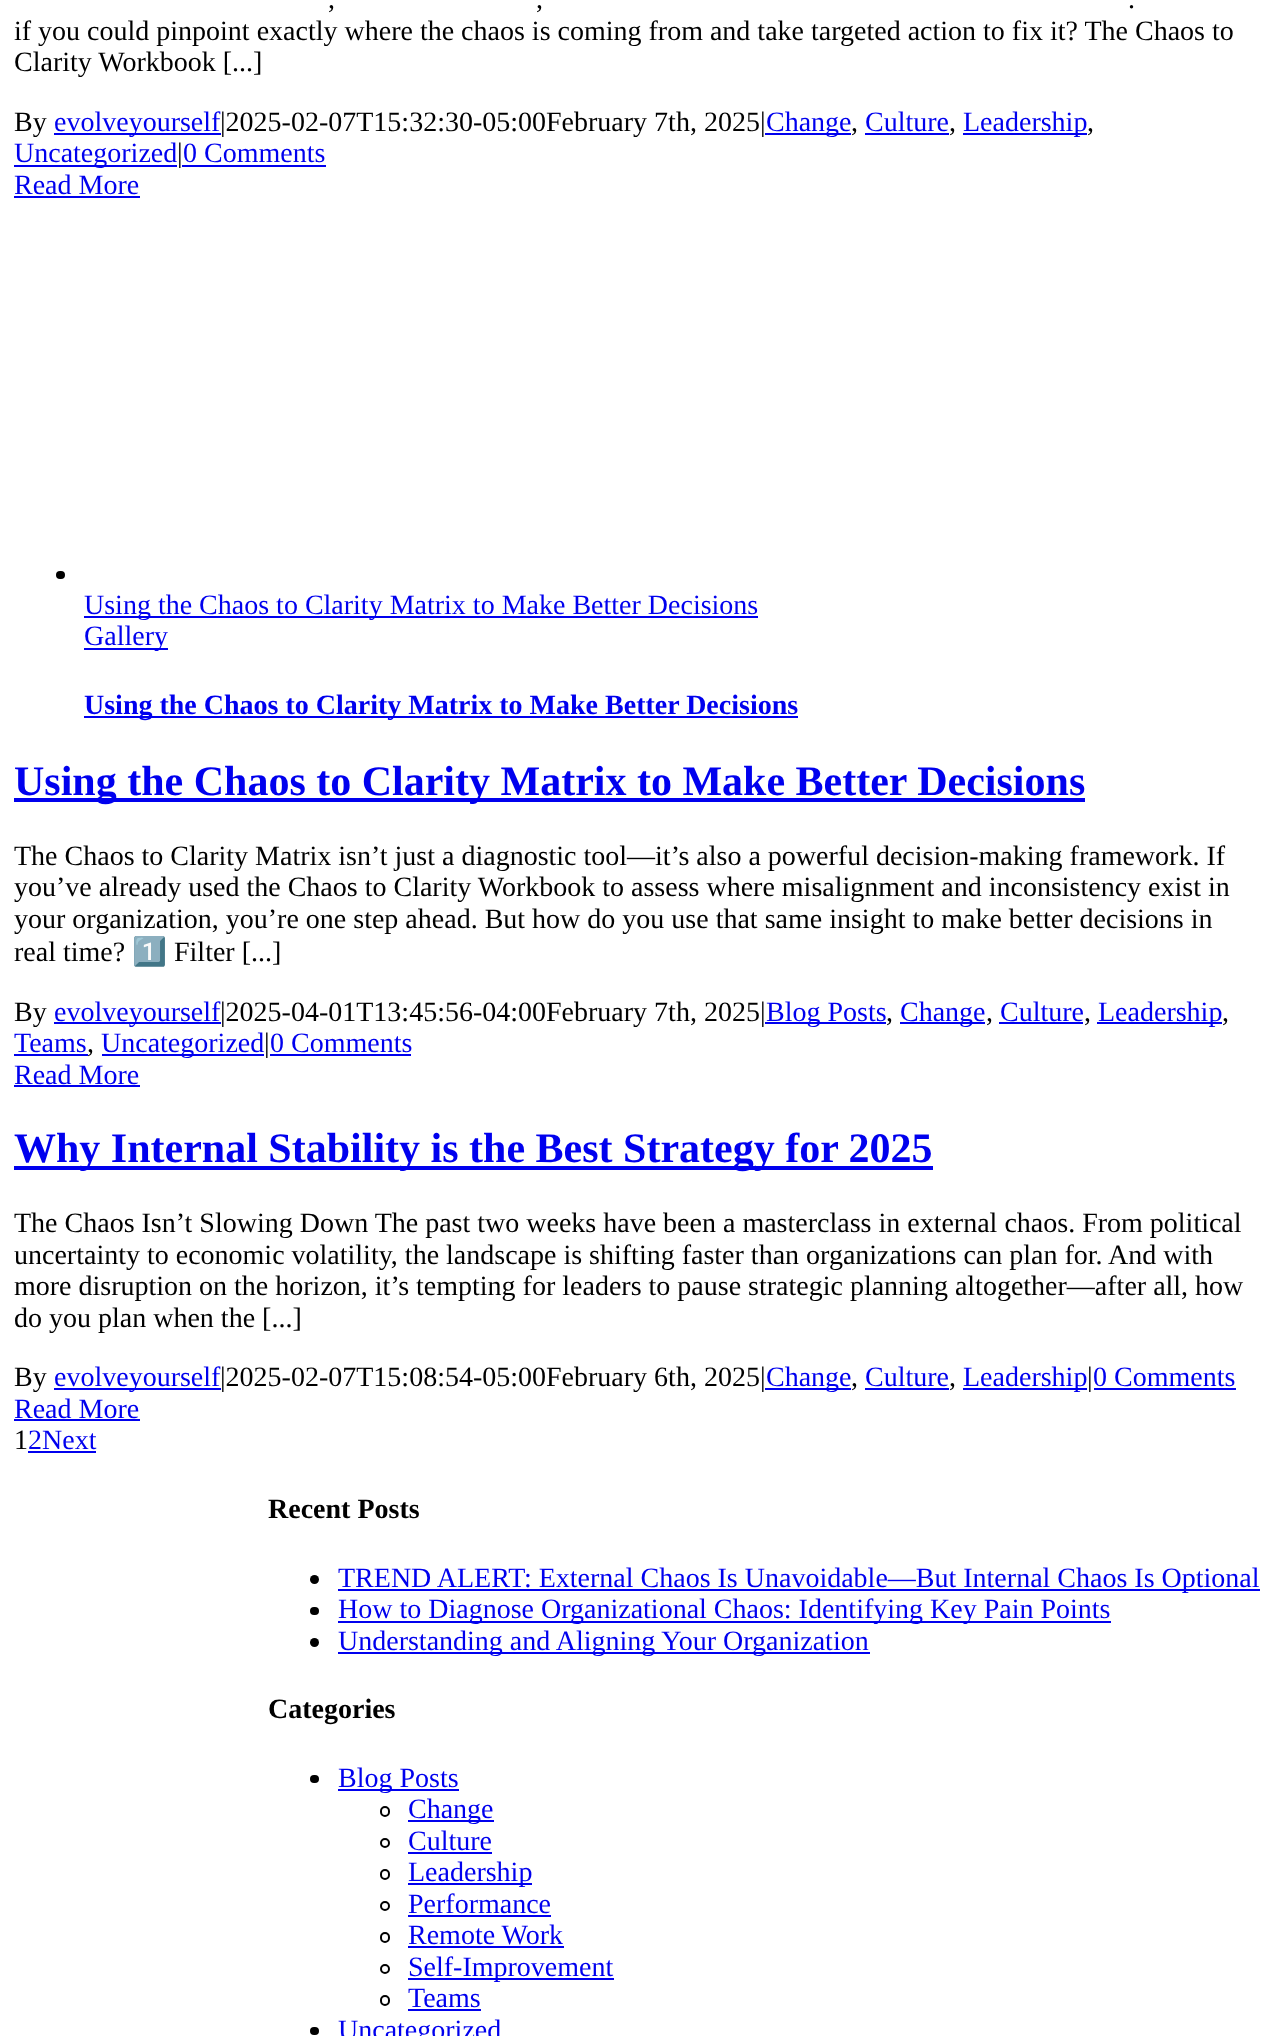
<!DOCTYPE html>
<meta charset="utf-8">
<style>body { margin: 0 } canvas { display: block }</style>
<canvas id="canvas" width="1274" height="2036"></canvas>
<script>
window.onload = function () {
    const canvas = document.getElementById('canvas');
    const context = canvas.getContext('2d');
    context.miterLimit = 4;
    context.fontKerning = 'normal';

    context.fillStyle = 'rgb(255, 255, 255)';
    context.fillRect(0, 0, 1274, 2036);
    context.fillStyle = 'rgb(0, 0, 238)';
    context.fillRect(54, 133, 167, 2);
    context.fillRect(765, 133, 86, 2);
    context.fillRect(865, 133, 84, 2);
    context.fillRect(963, 133, 124, 2);
    context.fillRect(14, 165, 163, 2);
    context.fillRect(182, 165, 144, 2);
    context.fillRect(14, 196, 126, 2);
    context.fillStyle = 'rgb(0, 0, 0)';
    context.beginPath();
    context.roundRect(56, 571, 9, 8, 4);
    context.fill();
    context.fillStyle = 'rgb(0, 0, 238)';
    context.fillRect(84, 616, 674, 2);
    context.fillRect(84, 648, 84, 2);
    context.fillRect(84, 716, 714, 2);
    context.fillRect(14, 798, 1071, 4);
    context.fillRect(54, 1022, 167, 2);
    context.fillRect(765, 1022, 121, 2);
    context.fillRect(900, 1022, 85, 2);
    context.fillRect(999, 1022, 84, 2);
    context.fillRect(1097, 1022, 125, 2);
    context.fillRect(14, 1054, 74, 2);
    context.fillRect(102, 1054, 162, 2);
    context.fillRect(270, 1054, 141, 2);
    context.fillRect(14, 1085, 126, 2);
    context.fillRect(14, 1166, 919, 4);
    context.fillRect(54, 1388, 167, 2);
    context.fillRect(765, 1388, 86, 2);
    context.fillRect(865, 1388, 84, 2);
    context.fillRect(963, 1388, 124, 2);
    context.fillRect(1094, 1388, 142, 2);
    context.fillRect(14, 1419, 126, 2);
    context.fillRect(28, 1451, 68, 2);
    context.fillStyle = 'rgb(0, 0, 0)';
    context.beginPath();
    context.arc(314.5, 1579.5, 4.5, 0, 2 * Math.PI);
    context.fill();
    context.fillStyle = 'rgb(0, 0, 238)';
    context.fillRect(338, 1589, 922, 2);
    context.fillStyle = 'rgb(0, 0, 0)';
    context.beginPath();
    context.roundRect(310, 1607, 9, 8, 4);
    context.fill();
    context.fillStyle = 'rgb(0, 0, 238)';
    context.fillRect(338, 1621, 773, 2);
    context.fillStyle = 'rgb(0, 0, 0)';
    context.beginPath();
    context.arc(314.5, 1642.5, 4.5, 0, 2 * Math.PI);
    context.fill();
    context.fillStyle = 'rgb(0, 0, 238)';
    context.fillRect(338, 1652, 532, 2);
    context.fillStyle = 'rgb(0, 0, 0)';
    context.beginPath();
    context.roundRect(310, 1775, 9, 8, 4);
    context.fill();
    context.fillStyle = 'rgb(0, 0, 238)';
    context.fillRect(338, 1789, 121, 2);
    context.beginPath();
    context.roundRect(381, 1807, 8, 9, 4);
    context.strokeStyle = 'rgb(0, 0, 0)';
    context.lineWidth = 2;
    context.stroke();
    context.fillRect(408, 1820, 86, 2);
    context.beginPath();
    context.arc(385, 1843, 4, 0, 2 * Math.PI);
    context.stroke();
    context.fillRect(408, 1852, 84, 2);
    context.beginPath();
    context.roundRect(381, 1870, 8, 9, 4);
    context.stroke();
    context.fillRect(408, 1883, 124, 2);
    context.beginPath();
    context.arc(385, 1906, 4, 0, 2 * Math.PI);
    context.stroke();
    context.fillRect(408, 1915, 143, 2);
    context.beginPath();
    context.roundRect(381, 1933, 8, 9, 4);
    context.stroke();
    context.fillRect(408, 1946, 156, 2);
    context.beginPath();
    context.arc(385, 1969, 4, 0, 2 * Math.PI);
    context.stroke();
    context.fillRect(408, 1978, 206, 2);
    context.beginPath();
    context.roundRect(381, 1996, 8, 9, 4);
    context.stroke();
    context.fillRect(408, 2009, 73, 2);
    context.fillStyle = 'rgb(0, 0, 0)';
    context.beginPath();
    context.roundRect(310, 2027, 9, 8, 4);
    context.fill();
    context.font = '28px Liberation Serif';
    context.fillText(',', 328, 8);
    context.fillText(',', 536, 8);
    context.fillText('.', 1128, 8);
    context.fillText('if you could pinpoint exactly where the chaos is coming from and take targeted action to fix it? The Chaos to', 14, 40);
    context.fillText('Clarity Workbook [...]', 14, 71);
    context.fillText('By', 14, 131);
    context.fillStyle = 'rgb(0, 0, 238)';
    context.fillText('evolveyourself', 54, 131);
    context.fillStyle = 'rgb(0, 0, 0)';
    context.fillText('|2025-02-07T15:32:30-05:00February 7th, 2025|', 220, 131);
    context.fillStyle = 'rgb(0, 0, 238)';
    context.fillText('Change', 766, 131);
    context.fillStyle = 'rgb(0, 0, 0)';
    context.fillText(',', 851, 131);
    context.fillStyle = 'rgb(0, 0, 238)';
    context.fillText('Culture', 865, 131);
    context.fillStyle = 'rgb(0, 0, 0)';
    context.fillText(',', 949, 131);
    context.fillStyle = 'rgb(0, 0, 238)';
    context.fillText('Leadership', 963, 131);
    context.fillStyle = 'rgb(0, 0, 0)';
    context.fillText(',', 1087, 131);
    context.fillStyle = 'rgb(0, 0, 238)';
    context.fillText('Uncategorized', 14, 162);
    context.fillStyle = 'rgb(0, 0, 0)';
    context.fillText('|', 177, 162);
    context.fillStyle = 'rgb(0, 0, 238)';
    context.fillText('0 Comments', 183, 162);
    context.fillText('Read More', 14, 194);
    context.fillText('Using the Chaos to Clarity Matrix to Make Better Decisions', 84, 614);
    context.fillText('Gallery', 84, 645);
    context.font = 'bold 28px Liberation Serif';
    context.fillText('Using the Chaos to Clarity Matrix to Make Better Decisions', 84, 714);
    context.font = 'bold 42px Liberation Serif';
    context.fillText('Using the Chaos to Clarity Matrix to Make Better Decisions', 14, 795);
    context.font = '28px Liberation Serif';
    context.fillStyle = 'rgb(0, 0, 0)';
    context.fillText('The Chaos to Clarity Matrix isn’t just a diagnostic tool—it’s also a powerful decision-making framework. If', 14, 865);
    context.fillText('you’ve already used the Chaos to Clarity Workbook to assess where misalignment and inconsistency exist in', 14, 896);
    context.fillText('your organization, you’re one step ahead. But how do you use that same insight to make better decisions in', 14, 928);
    context.fillText('real time?', 14, 961);
    context.font = '28px Noto Color Emoji';
    context.fillText('1️⃣', 132, 961);
    context.font = '28px Liberation Serif';
    context.fillText('Filter [...]', 174, 961);
    context.fillText('By', 14, 1021);
    context.fillStyle = 'rgb(0, 0, 238)';
    context.fillText('evolveyourself', 54, 1021);
    context.fillStyle = 'rgb(0, 0, 0)';
    context.fillText('|2025-04-01T13:45:56-04:00February 7th, 2025|', 220, 1021);
    context.fillStyle = 'rgb(0, 0, 238)';
    context.fillText('Blog Posts', 766, 1021);
    context.fillStyle = 'rgb(0, 0, 0)';
    context.fillText(',', 886, 1021);
    context.fillStyle = 'rgb(0, 0, 238)';
    context.fillText('Change', 900, 1021);
    context.fillStyle = 'rgb(0, 0, 0)';
    context.fillText(',', 986, 1021);
    context.fillStyle = 'rgb(0, 0, 238)';
    context.fillText('Culture', 1000, 1021);
    context.fillStyle = 'rgb(0, 0, 0)';
    context.fillText(',', 1084, 1021);
    context.fillStyle = 'rgb(0, 0, 238)';
    context.fillText('Leadership', 1098, 1021);
    context.fillStyle = 'rgb(0, 0, 0)';
    context.fillText(',', 1222, 1021);
    context.fillStyle = 'rgb(0, 0, 238)';
    context.fillText('Teams', 14, 1052);
    context.fillStyle = 'rgb(0, 0, 0)';
    context.fillText(',', 87, 1052);
    context.fillStyle = 'rgb(0, 0, 238)';
    context.fillText('Uncategorized', 101, 1052);
    context.fillStyle = 'rgb(0, 0, 0)';
    context.fillText('|', 264, 1052);
    context.fillStyle = 'rgb(0, 0, 238)';
    context.fillText('0 Comments', 270, 1052);
    context.fillText('Read More', 14, 1084);
    context.font = 'bold 42px Liberation Serif';
    context.fillText('Why Internal Stability is the Best Strategy for 2025', 14, 1162);
    context.font = '28px Liberation Serif';
    context.fillStyle = 'rgb(0, 0, 0)';
    context.fillText('The Chaos Isn’t Slowing Down The past two weeks have been a masterclass in external chaos. From political', 14, 1232);
    context.fillText('uncertainty to economic volatility, the landscape is shifting faster than organizations can plan for. And with', 14, 1264);
    context.fillText('more disruption on the horizon, it’s tempting for leaders to pause strategic planning altogether—after all, how', 14, 1295);
    context.fillText('do you plan when the [...]', 14, 1327);
    context.fillText('By', 14, 1386);
    context.fillStyle = 'rgb(0, 0, 238)';
    context.fillText('evolveyourself', 54, 1386);
    context.fillStyle = 'rgb(0, 0, 0)';
    context.fillText('|2025-02-07T15:08:54-05:00February 6th, 2025|', 220, 1386);
    context.fillStyle = 'rgb(0, 0, 238)';
    context.fillText('Change', 766, 1386);
    context.fillStyle = 'rgb(0, 0, 0)';
    context.fillText(',', 851, 1386);
    context.fillStyle = 'rgb(0, 0, 238)';
    context.fillText('Culture', 865, 1386);
    context.fillStyle = 'rgb(0, 0, 0)';
    context.fillText(',', 949, 1386);
    context.fillStyle = 'rgb(0, 0, 238)';
    context.fillText('Leadership', 963, 1386);
    context.fillStyle = 'rgb(0, 0, 0)';
    context.fillText('|', 1087, 1386);
    context.fillStyle = 'rgb(0, 0, 238)';
    context.fillText('0 Comments', 1093, 1386);
    context.fillText('Read More', 14, 1418);
    context.fillStyle = 'rgb(0, 0, 0)';
    context.fillText('1', 14, 1449);
    context.fillStyle = 'rgb(0, 0, 238)';
    context.fillText('2Next', 28, 1449);
    context.font = 'bold 28px Liberation Serif';
    context.fillStyle = 'rgb(0, 0, 0)';
    context.fillText('Recent Posts', 268, 1518);
    context.font = '28px Liberation Serif';
    context.fillStyle = 'rgb(0, 0, 238)';
    context.fillText('TREND ALERT: External Chaos Is Unavoidable—But Internal Chaos Is Optional', 338, 1587);
    context.fillText('How to Diagnose Organizational Chaos: Identifying Key Pain Points', 338, 1618);
    context.fillText('Understanding and Aligning Your Organization', 338, 1650);
    context.font = 'bold 28px Liberation Serif';
    context.fillStyle = 'rgb(0, 0, 0)';
    context.fillText('Categories', 268, 1718);
    context.font = '28px Liberation Serif';
    context.fillStyle = 'rgb(0, 0, 238)';
    context.fillText('Blog Posts', 338, 1787);
    context.fillText('Change', 408, 1818);
    context.fillText('Culture', 408, 1850);
    context.fillText('Leadership', 408, 1881);
    context.fillText('Performance', 408, 1913);
    context.fillText('Remote Work', 408, 1944);
    context.fillText('Self-Improvement', 408, 1976);
    context.fillText('Teams', 408, 2007);
    context.fillText('Uncategorized', 338, 2039);
};
</script>
